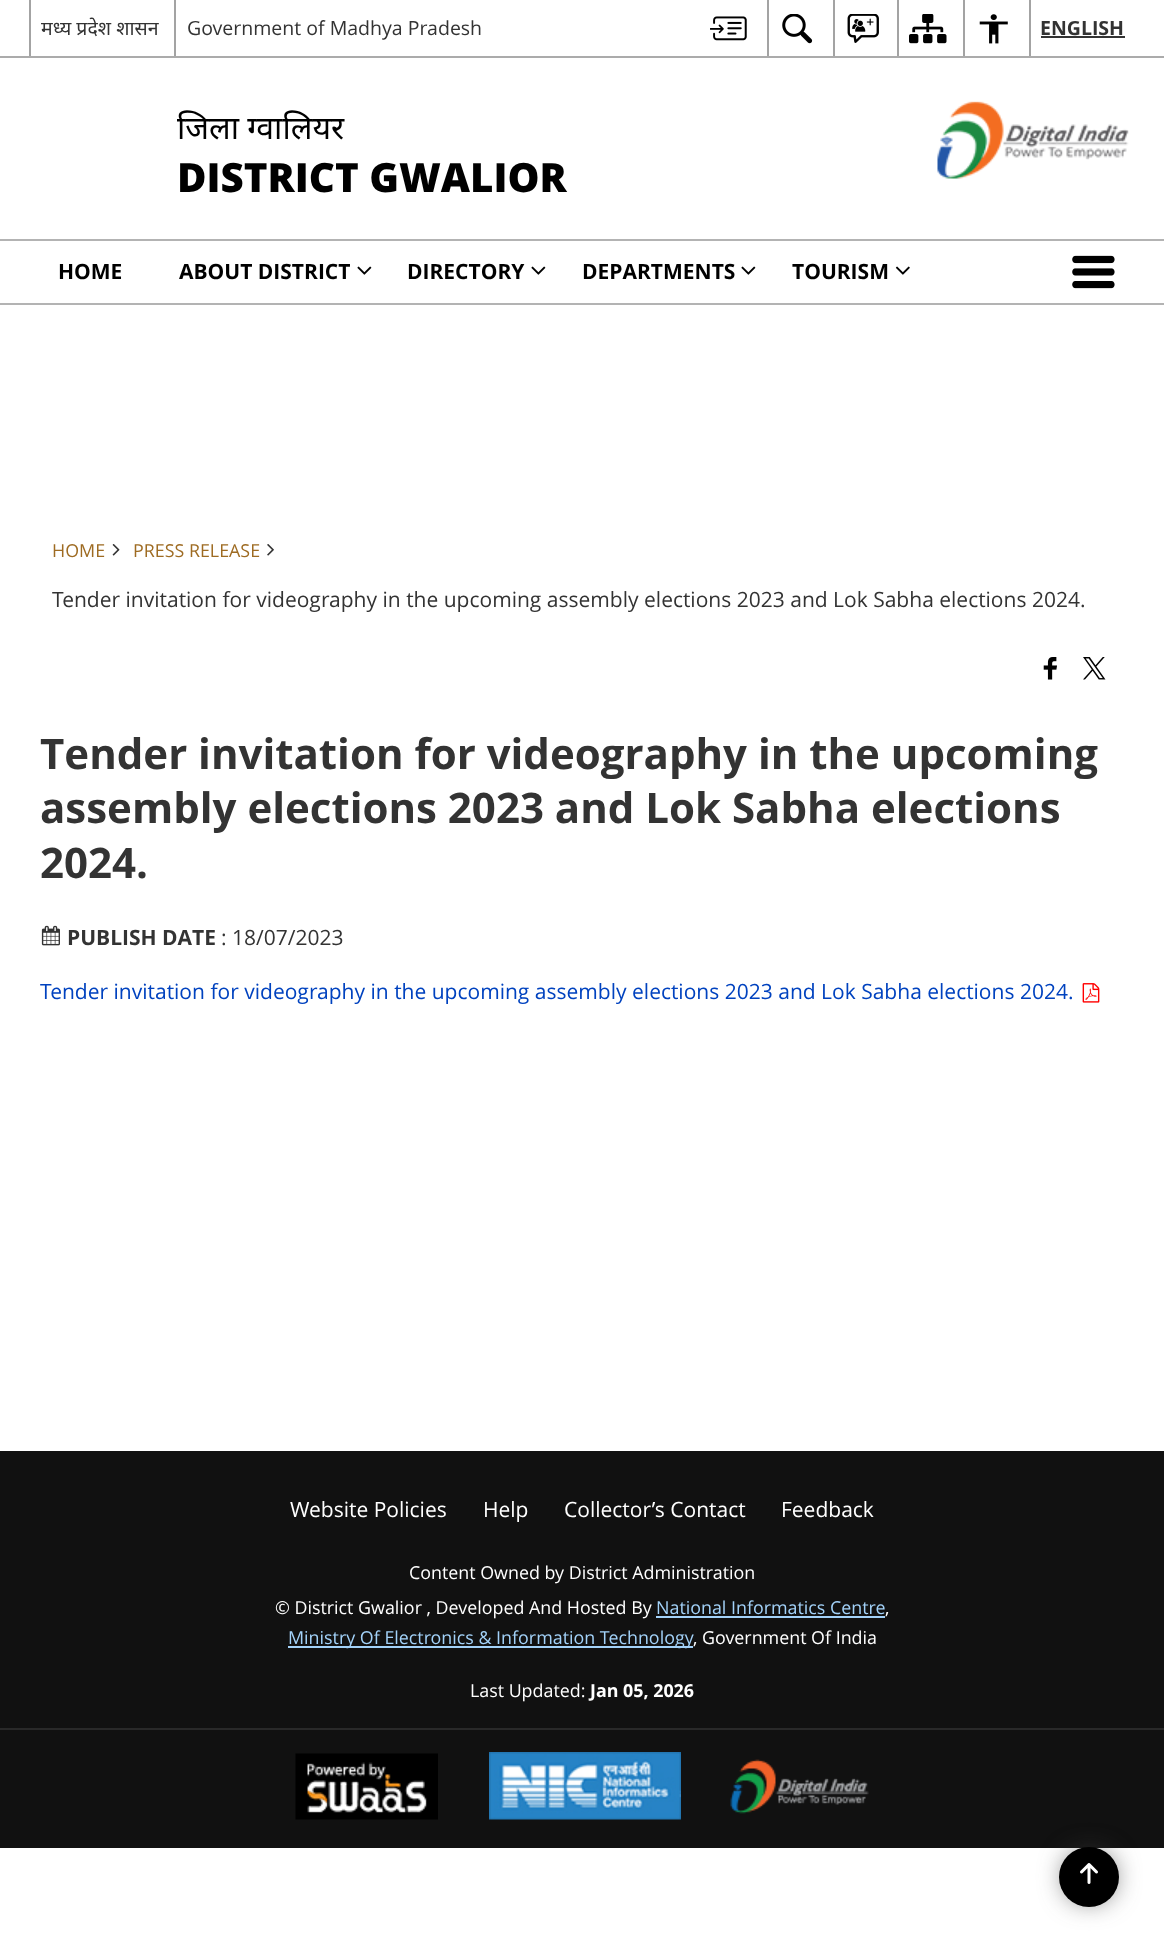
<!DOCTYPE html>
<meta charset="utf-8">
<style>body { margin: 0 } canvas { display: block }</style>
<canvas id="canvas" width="1164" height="1951"></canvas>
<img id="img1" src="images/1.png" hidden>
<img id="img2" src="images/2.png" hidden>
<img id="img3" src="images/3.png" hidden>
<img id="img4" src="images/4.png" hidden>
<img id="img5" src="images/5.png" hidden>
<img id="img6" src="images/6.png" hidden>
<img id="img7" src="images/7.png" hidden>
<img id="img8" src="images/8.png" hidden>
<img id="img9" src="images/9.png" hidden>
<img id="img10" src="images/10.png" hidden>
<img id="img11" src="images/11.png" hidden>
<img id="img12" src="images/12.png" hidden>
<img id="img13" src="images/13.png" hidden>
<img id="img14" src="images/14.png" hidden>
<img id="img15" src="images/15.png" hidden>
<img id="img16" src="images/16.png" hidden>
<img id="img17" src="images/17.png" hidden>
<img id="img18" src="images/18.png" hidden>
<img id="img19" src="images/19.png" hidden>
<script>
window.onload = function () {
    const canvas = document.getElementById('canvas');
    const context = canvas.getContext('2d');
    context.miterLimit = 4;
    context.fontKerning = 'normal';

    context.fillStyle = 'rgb(255, 255, 255)';
    context.fillRect(0, 0, 1164, 1951);
    context.fillStyle = 'rgb(171, 171, 171)';
    context.fillRect(0, 56, 1164, 2);
    context.fillStyle = 'rgb(163, 163, 163)';
    context.fillRect(29, 0, 2, 56);
    context.fillRect(174, 0, 2, 56);
    context.drawImage(document.getElementById('img1'), 710, 16, 37, 25);
    context.fillRect(767, 0, 2, 56);
    context.drawImage(document.getElementById('img2'), 782, 14, 31, 30);
    context.fillRect(833, 0, 2, 56);
    context.drawImage(document.getElementById('img3'), 847, 14, 32, 29);
    context.fillRect(897, 0, 2, 56);
    context.drawImage(document.getElementById('img4'), 909, 14, 38, 30);
    context.fillRect(963, 0, 2, 56);
    context.drawImage(document.getElementById('img5'), 979, 14, 29, 30);
    context.fillRect(1029, 0, 2, 56);
    context.fillStyle = 'rgb(51, 51, 51)';
    context.fillRect(1041, 36, 84, 2);
    context.drawImage(document.getElementById('img6'), 937, 101, 192, 78);
    context.fillStyle = 'rgb(179, 179, 179)';
    context.fillRect(0, 239, 1164, 2);
    context.fillRect(0, 303, 1164, 2);
    context.drawImage(document.getElementById('img7'), 357, 266, 15, 9);
    context.drawImage(document.getElementById('img7'), 531, 266, 15, 9);
    context.drawImage(document.getElementById('img7'), 741, 266, 15, 9);
    context.drawImage(document.getElementById('img8'), 895, 266, 15, 9);
    context.drawImage(document.getElementById('img9'), 1072, 255, 43, 34);
    context.drawImage(document.getElementById('img10'), 112, 544, 8, 12);
    context.drawImage(document.getElementById('img11'), 267, 544, 7, 12);
    context.drawImage(document.getElementById('img12'), 1043, 657, 14, 23);
    context.drawImage(document.getElementById('img13'), 1083, 657, 23, 23);
    context.drawImage(document.getElementById('img14'), 41, 925, 19, 21);
    context.drawImage(document.getElementById('img15'), 1082, 983, 18, 20);
    context.fillStyle = 'rgb(17, 17, 17)';
    context.fillRect(0, 1451, 1164, 397);
    context.fillStyle = 'rgb(163, 210, 249)';
    context.fillRect(656, 1616, 229, 2);
    context.fillRect(288, 1646, 405, 2);
    context.fillStyle = 'rgb(41, 41, 41)';
    context.fillRect(0, 1728, 1164, 2);
    context.drawImage(document.getElementById('img16'), 295, 1753, 143, 67);
    context.drawImage(document.getElementById('img17'), 489, 1752, 192, 68);
    context.drawImage(document.getElementById('img18'), 730, 1759, 139, 55);
    context.fillStyle = 'rgb(60, 60, 60)';
    context.filter = 'blur(14px)';
    context.beginPath();
    context.roundRect(1067, 1854, 45, 45, 22.5);
    context.fill();
    context.filter = 'none';
    context.fillStyle = 'rgb(0, 0, 0)';
    context.beginPath();
    context.arc(1089, 1877, 30, 0, 2 * Math.PI);
    context.fill();
    context.drawImage(document.getElementById('img19'), 1080, 1863, 18, 21);
    context.font = '19.5px Noto Sans';
    context.fillStyle = 'rgb(51, 51, 51)';
    context.fillText('मध्य प्रदेश शासन', 41, 35);
    context.font = '19.5px Open Sans';
    context.fillText('Government of Madhya Pradesh', 187, 35);
    context.font = 'bold 19.5px Open Sans';
    context.fillText('ENGLISH', 1040, 35);
    context.font = '32px Noto Sans';
    context.fillStyle = 'rgb(0, 0, 0)';
    context.fillText('जिला ग्वालियर', 177, 139);
    context.font = '800 40.25px Open Sans';
    context.fillText('DISTRICT GWALIOR', 177, 192);
    context.font = 'bold 21px Open Sans';
    context.fillText('HOME', 58, 279);
    context.fillText('ABOUT DISTRICT', 179, 279);
    context.fillText('DIRECTORY', 407, 279);
    context.fillText('DEPARTMENTS', 582, 279);
    context.fillText('TOURISM', 792, 279);
    context.font = '17.85px Open Sans';
    context.fillStyle = 'rgb(158, 107, 34)';
    context.fillText('HOME', 52, 557);
    context.fillText('PRESS RELEASE', 133, 557);
    context.font = '21px Open Sans';
    context.fillStyle = 'rgb(51, 51, 51)';
    context.fillText('Tender invitation for videography in the upcoming assembly elections 2023 and Lok Sabha elections 2024.', 52, 607);
    context.font = 'bold 42px Open Sans';
    context.fillText('Tender invitation for videography in the upcoming', 40, 769);
    context.fillText('assembly elections 2023 and Lok Sabha elections', 40, 823);
    context.fillText('2024.', 40, 878);
    context.font = 'bold 21px Open Sans';
    context.fillText('PUBLISH DATE', 67, 945);
    context.font = '21px Open Sans';
    context.fillText(': 18/07/2023', 221, 945);
    context.fillStyle = 'rgb(0, 66, 191)';
    context.fillText('Tender invitation for videography in the upcoming assembly elections 2023 and Lok Sabha elections 2024.', 40, 999);
    context.fillStyle = 'rgb(255, 255, 255)';
    context.fillText('Website Policies', 290, 1517);
    context.fillText('Help', 483, 1517);
    context.fillText('Collector’s Contact', 564, 1517);
    context.fillText('Feedback', 781, 1517);
    context.font = '17.85px Open Sans';
    context.fillText('Content Owned by District Administration', 409, 1579);
    context.fillText('© District Gwalior , Developed And Hosted By', 275, 1614);
    context.fillStyle = 'rgb(163, 210, 249)';
    context.fillText('National Informatics Centre', 656, 1614);
    context.fillStyle = 'rgb(255, 255, 255)';
    context.fillText(',', 885, 1614);
    context.fillStyle = 'rgb(163, 210, 249)';
    context.fillText('Ministry Of Electronics & Information Technology', 288, 1644);
    context.fillStyle = 'rgb(255, 255, 255)';
    context.fillText(', Government Of India', 693, 1644);
    context.fillText('Last Updated:', 470, 1697);
    context.font = 'bold 17.85px Open Sans';
    context.fillText('Jan 05, 2026', 590, 1697);
};
</script>
